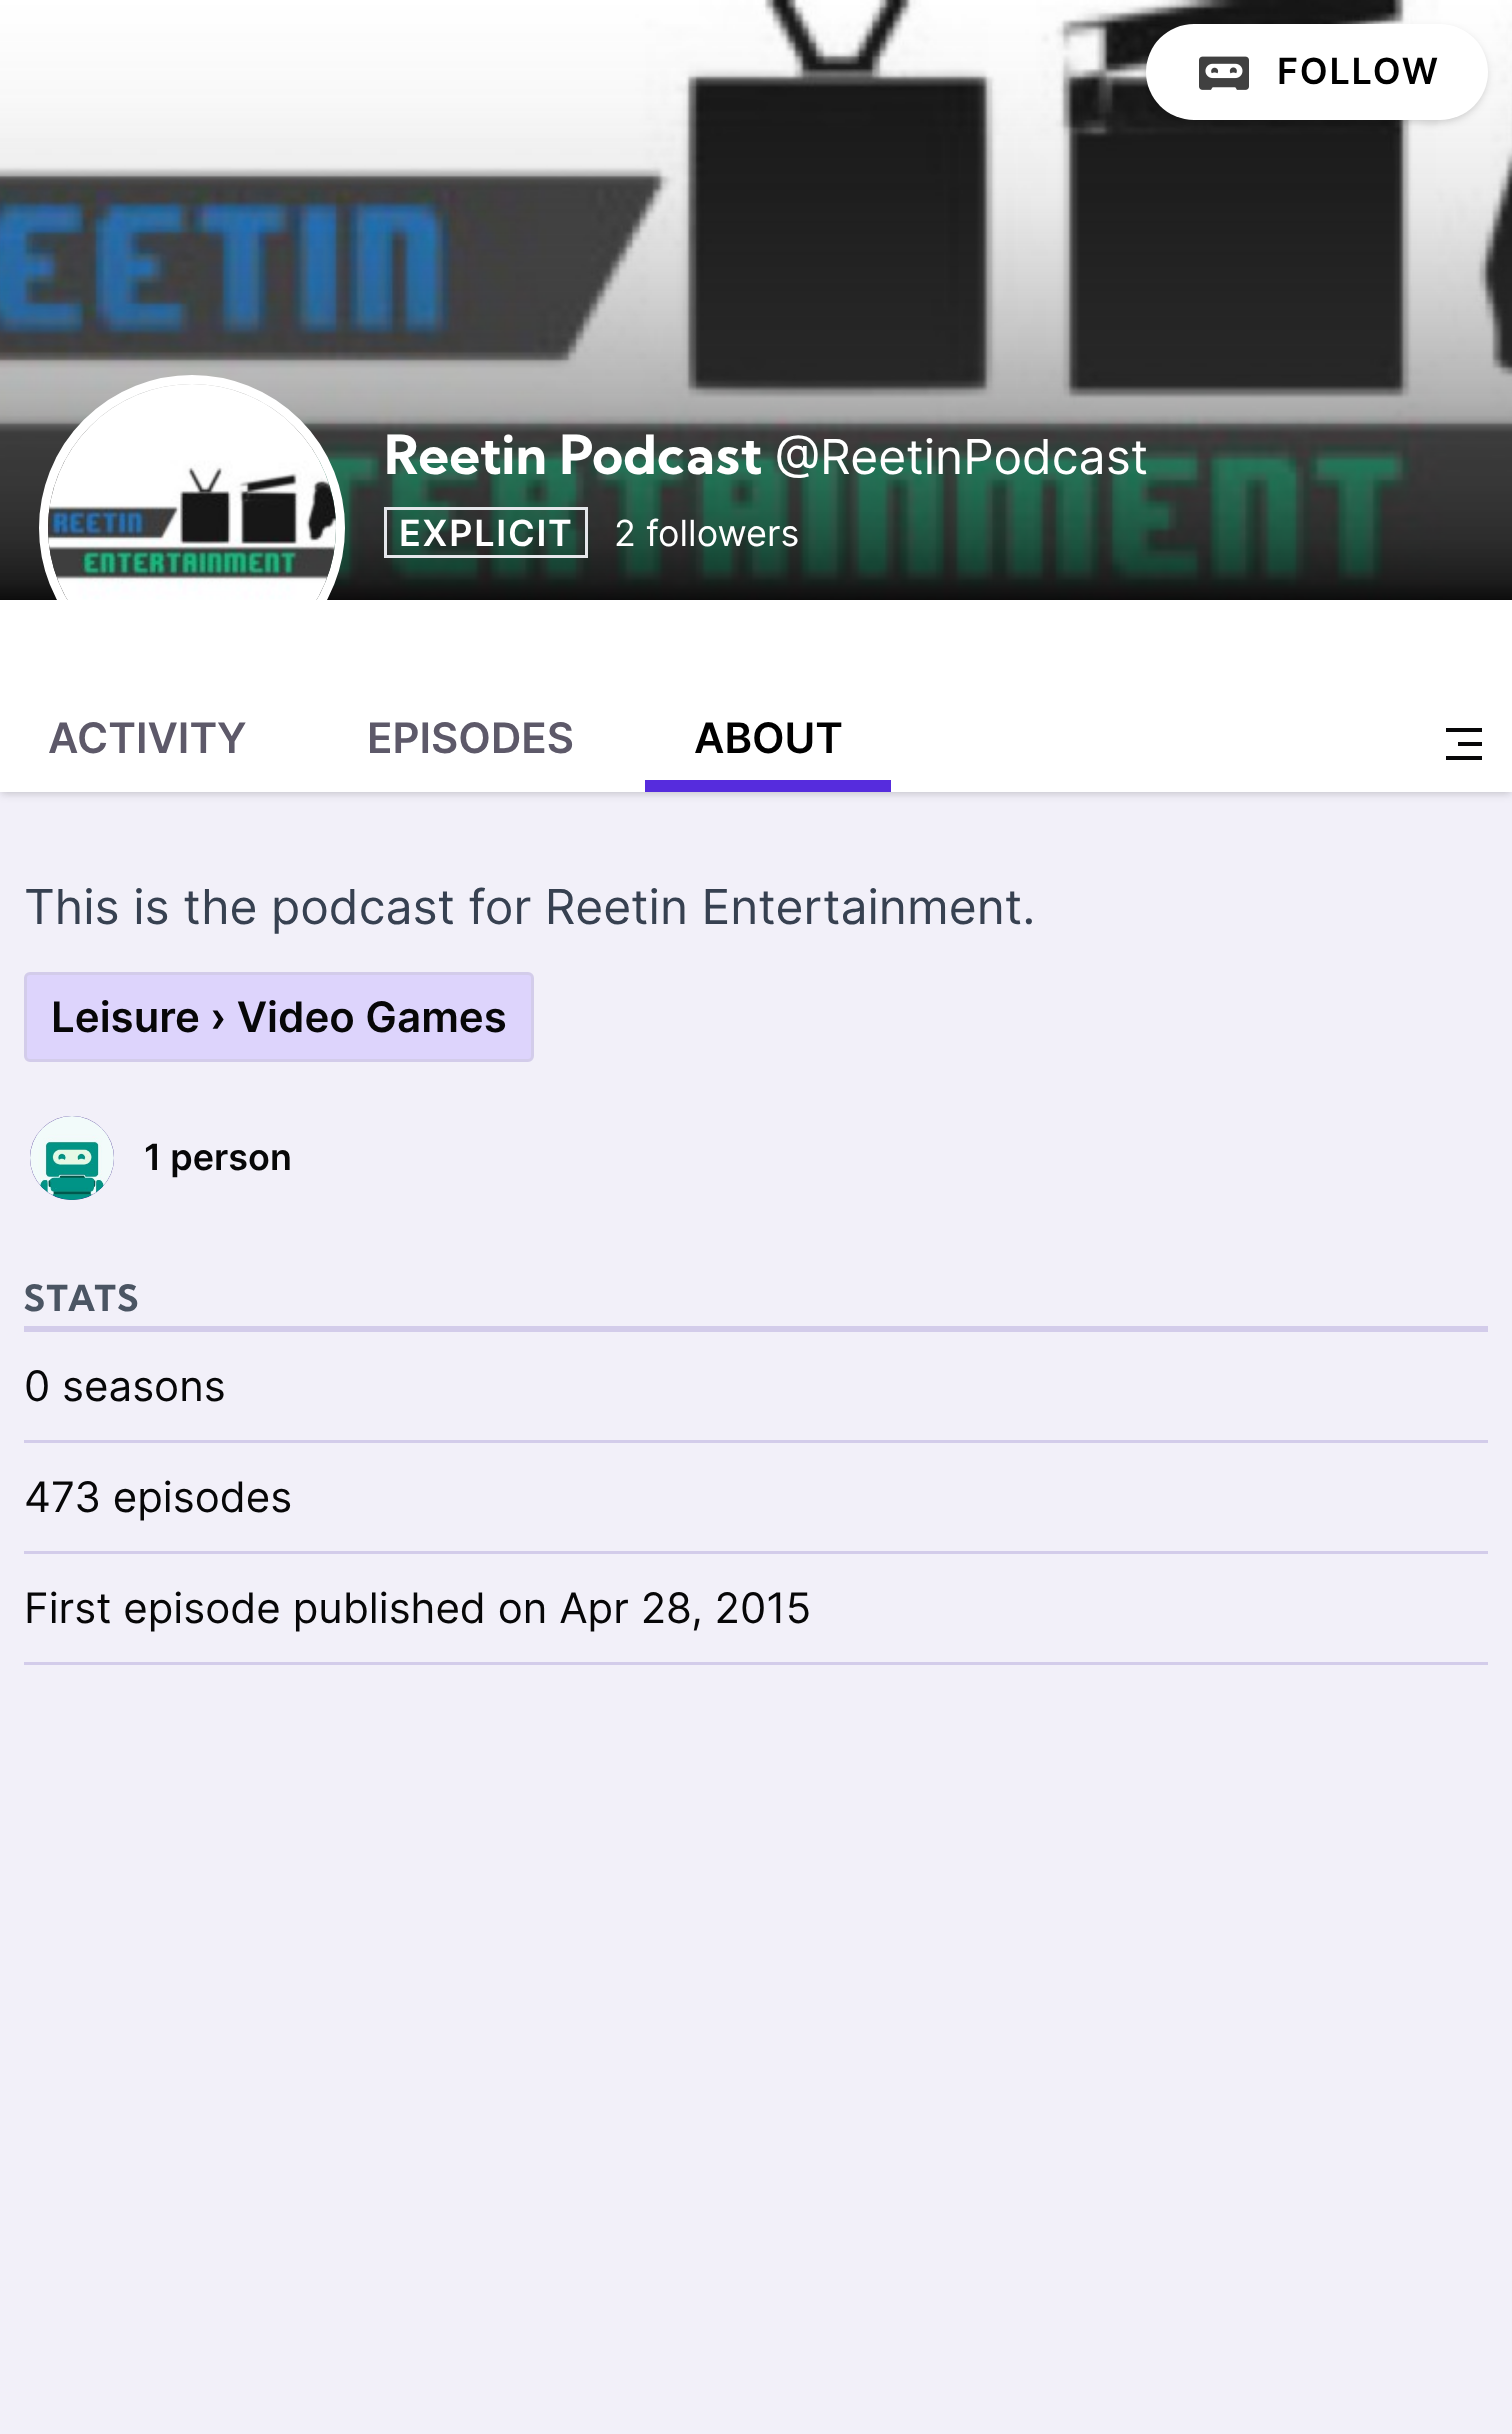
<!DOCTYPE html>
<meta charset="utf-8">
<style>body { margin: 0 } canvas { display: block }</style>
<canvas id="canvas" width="1512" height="2434"></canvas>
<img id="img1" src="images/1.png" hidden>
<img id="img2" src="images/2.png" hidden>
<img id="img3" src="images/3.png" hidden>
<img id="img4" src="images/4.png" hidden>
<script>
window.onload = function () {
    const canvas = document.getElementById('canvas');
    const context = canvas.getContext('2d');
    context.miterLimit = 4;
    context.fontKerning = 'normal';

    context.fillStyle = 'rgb(242, 240, 249)';
    context.fillRect(0, 0, 1512, 2434);
    context.fillStyle = 'rgba(0, 0, 0, 0.1)';
    context.filter = 'blur(3px)';
    context.beginPath();
    context.rect(3, 606, 1506, 186);
    context.fill();
    context.filter = 'none';
    context.filter = 'blur(4.5px)';
    context.beginPath();
    context.rect(0, 603, 1512, 192);
    context.fill();
    context.filter = 'none';
    context.drawImage(document.getElementById('img1'), 0, 0, 1512, 600);
    context.filter = 'blur(3px)';
    context.beginPath();
    context.roundRect(1149, 30, 336, 90, 45);
    context.fill();
    context.filter = 'none';
    context.filter = 'blur(4.5px)';
    context.beginPath();
    context.roundRect(1146, 27, 342, 96, 48);
    context.fill();
    context.filter = 'none';
    context.fillStyle = 'rgb(255, 255, 255)';
    context.beginPath();
    context.roundRect(1146, 24, 342, 96, 48);
    context.fill();
    context.drawImage(document.getElementById('img2'), 1199, 56, 50, 34);
    context.fillRect(0, 600, 1512, 192);
    context.beginPath();
    context.arc(192, 528, 148.5, 0, 2 * Math.PI);
    context.strokeStyle = 'rgb(255, 255, 255)';
    context.lineWidth = 9;
    context.stroke();
    context.drawImage(document.getElementById('img3'), 48, 384, 288, 216);
    context.strokeStyle = 'rgb(229, 231, 235)';
    context.lineWidth = 3;
    context.strokeRect(385.5, 508.5, 201, 48);
    context.fillStyle = 'rgb(86, 44, 221)';
    context.fillRect(645, 780, 246, 12);
    context.fillStyle = 'rgb(7, 7, 8)';
    context.beginPath();
    context.moveTo(1482, 760);
    context.lineTo(1446, 760);
    context.lineTo(1446, 756);
    context.lineTo(1482, 756);
    context.closePath();
    context.moveTo(1482, 746);
    context.lineTo(1458, 746);
    context.lineTo(1458, 742);
    context.lineTo(1482, 742);
    context.closePath();
    context.moveTo(1482, 732);
    context.lineTo(1446, 732);
    context.lineTo(1446, 728);
    context.lineTo(1482, 728);
    context.closePath();
    context.fill();
    context.fillStyle = 'rgb(221, 212, 252)';
    context.beginPath();
    context.roundRect(25.5, 973.5, 507, 87, 4.5);
    context.fill();
    context.strokeStyle = 'rgb(211, 204, 234)';
    context.stroke();
    context.fillStyle = 'rgb(47, 21, 132)';
    context.beginPath();
    context.arc(72, 1158, 45, 0, 2 * Math.PI);
    context.fill();
    context.strokeStyle = 'rgb(242, 240, 249)';
    context.lineWidth = 6;
    context.stroke();
    context.drawImage(document.getElementById('img4'), 30, 1116, 84, 84);
    context.fillStyle = 'rgb(211, 204, 234)';
    context.fillRect(24, 1326, 1464, 6);
    context.fillRect(24, 1440, 1464, 3);
    context.fillRect(24, 1551, 1464, 3);
    context.fillRect(24, 1662, 1464, 3);
    context.letterSpacing = '1.75px';
    context.font = '600 36px Inter';
    context.fillStyle = 'rgb(0, 0, 0)';
    context.fillText('FOLLOW', 1277, 84);
    context.letterSpacing = '0px';
    context.font = 'bold 54px Kumbh Sans';
    context.fillStyle = 'rgb(255, 255, 255)';
    context.fillText('Reetin Podcast', 384, 474);
    context.font = '48px Inter';
    context.fillText('@ReetinPodcast', 775, 474);
    context.letterSpacing = '1.75px';
    context.font = '600 36px Inter';
    context.fillText('EXPLICIT', 399, 546);
    context.letterSpacing = '0px';
    context.font = '36px Inter';
    context.fillText('2 followers', 614, 546);
    context.font = '600 42px Inter';
    context.fillStyle = 'rgb(93, 89, 105)';
    context.fillText('ACTIVITY', 48, 753);
    context.fillText('EPISODES', 367, 753);
    context.fillStyle = 'rgb(0, 0, 0)';
    context.fillText('ABOUT', 694, 753);
    context.font = '48px Inter';
    context.fillStyle = 'rgb(55, 65, 81)';
    context.fillText('This is the podcast for Reetin Entertainment.', 24, 924);
    context.font = '600 42px Inter';
    context.fillStyle = 'rgb(7, 7, 8)';
    context.fillText('Leisure › Video Games', 51, 1032);
    context.font = '600 36px Inter';
    context.fillText('1 person', 144, 1170);
    context.letterSpacing = '1.75px';
    context.font = 'bold 36px Kumbh Sans';
    context.fillStyle = 'rgb(75, 85, 99)';
    context.fillText('STATS', 24, 1311);
    context.letterSpacing = '0px';
    context.font = '42px Inter';
    context.fillStyle = 'rgb(7, 7, 8)';
    context.fillText('0 seasons', 24, 1401);
    context.fillText('473 episodes', 24, 1512);
    context.fillText('First episode published on Apr 28, 2015', 24, 1623);
};
</script>
